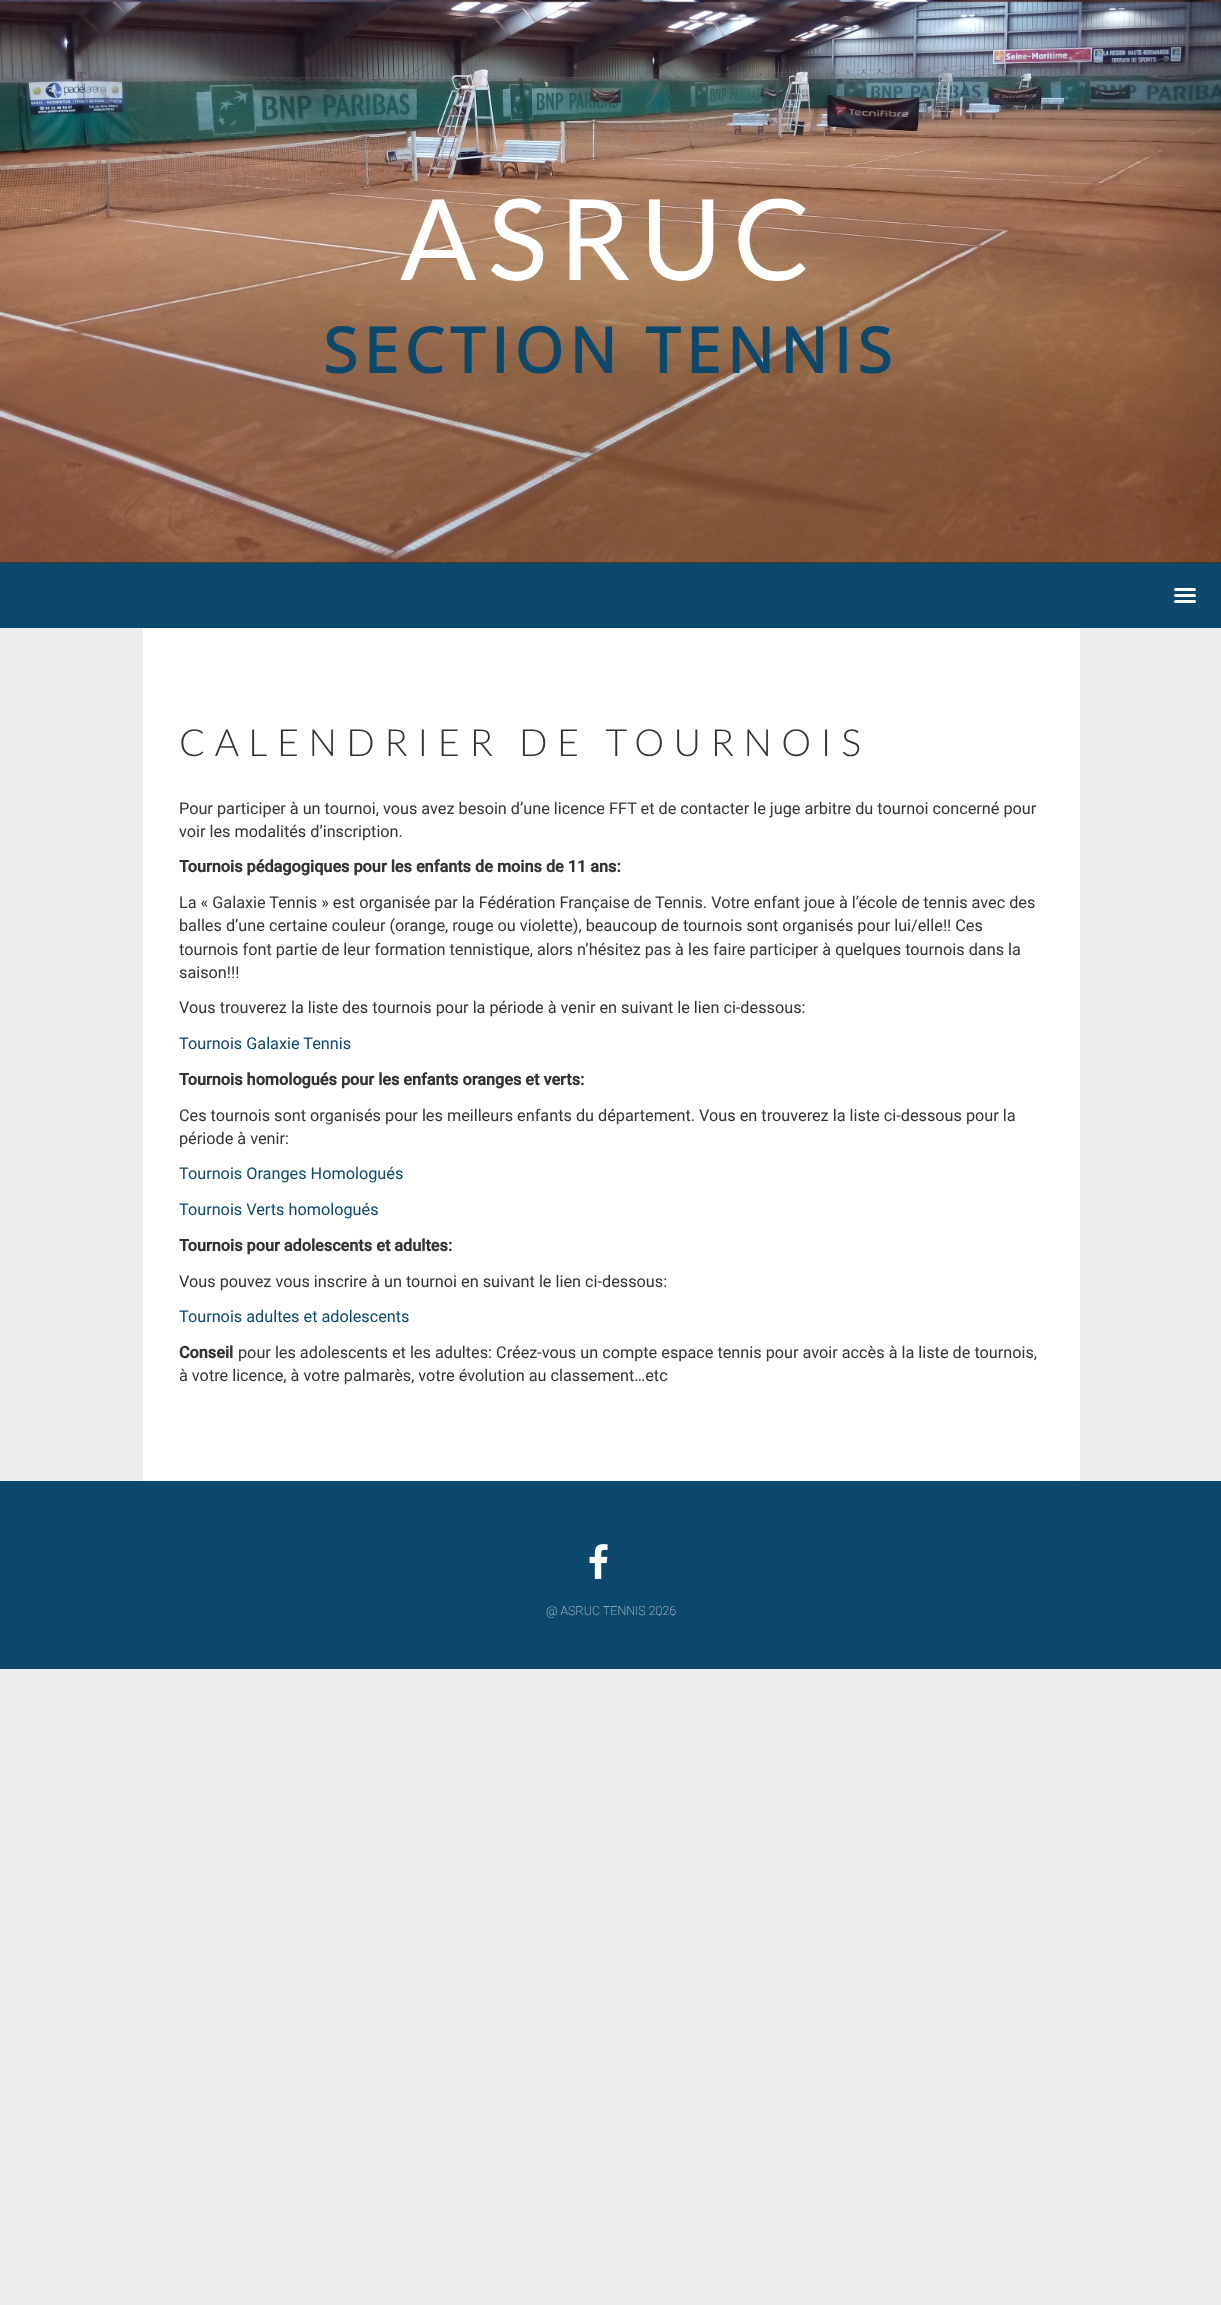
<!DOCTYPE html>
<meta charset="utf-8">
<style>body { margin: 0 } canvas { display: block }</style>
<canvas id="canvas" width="1221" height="2305"></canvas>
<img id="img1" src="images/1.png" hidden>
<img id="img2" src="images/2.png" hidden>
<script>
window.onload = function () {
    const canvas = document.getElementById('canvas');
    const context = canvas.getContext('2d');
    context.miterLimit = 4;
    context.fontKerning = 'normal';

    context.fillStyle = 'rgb(238, 238, 238)';
    context.fillRect(0, 0, 1221, 2305);
    context.fillStyle = 'rgb(28, 28, 28)';
    context.fillRect(0, 562, 1221, 1);
    context.drawImage(document.getElementById('img1'), 0, 0, 1221, 563);
    context.fillStyle = 'rgb(11, 72, 107)';
    context.fillRect(0, 563, 1221, 65);
    context.fillStyle = 'rgb(255, 255, 255)';
    context.beginPath();
    context.roundRect(1174, 588, 22, 3, 1.5);
    context.fill();
    context.beginPath();
    context.roundRect(1174, 594, 22, 3, 1.5);
    context.fill();
    context.beginPath();
    context.roundRect(1174, 600, 22, 3, 1.5);
    context.fill();
    context.fillRect(143, 628, 937, 853);
    context.fillStyle = 'rgb(11, 72, 107)';
    context.fillRect(0, 1481, 1221, 188);
    context.drawImage(document.getElementById('img2'), 589, 1544, 19, 35);
    context.letterSpacing = '11.25px';
    context.font = '112.5px Lato';
    context.fillStyle = 'rgb(255, 255, 255)';
    context.fillText('ASRUC', 400, 280);
    context.letterSpacing = '6.25px';
    context.font = 'bold 62.5px Open Sans';
    context.fillStyle = 'rgb(11, 72, 107)';
    context.fillText('SECTION TENNIS', 323, 373);
    context.letterSpacing = '9.4px';
    context.font = '300 37.5px Lato';
    context.fillStyle = 'rgb(51, 51, 51)';
    context.fillText('CALENDRIER DE TOURNOIS', 179, 756);
    context.letterSpacing = '0px';
    context.font = '16.25px Roboto';
    context.fillText('Pour participer à un tournoi, vous avez besoin d’une licence FFT et de contacter le juge arbitre du tournoi concerné pour', 179, 814);
    context.fillText('voir les modalités d’inscription.', 179, 837);
    context.font = 'bold 16.25px Roboto';
    context.fillText('Tournois pédagogiques pour les enfants de moins de 11 ans:', 179, 872);
    context.font = '16.25px Roboto';
    context.fillText('La « Galaxie Tennis » est organisée par la Fédération Française de Tennis. Votre enfant joue à l’école de tennis avec des', 179, 908);
    context.fillText('balles d’une certaine couleur (orange, rouge ou violette), beaucoup de tournois sont organisés pour lui/elle!! Ces', 179, 931);
    context.fillText('tournois font partie de leur formation tennistique, alors n’hésitez pas à les faire participer à quelques tournois dans la', 179, 955);
    context.fillText('saison!!!', 179, 978);
    context.fillText('Vous trouverez la liste des tournois pour la période à venir en suivant le lien ci-dessous:', 179, 1013);
    context.fillStyle = 'rgb(11, 72, 107)';
    context.fillText('Tournois Galaxie Tennis', 179, 1049);
    context.font = 'bold 16.25px Roboto';
    context.fillStyle = 'rgb(51, 51, 51)';
    context.fillText('Tournois homologués pour les enfants oranges et verts:', 179, 1085);
    context.font = '16.25px Roboto';
    context.fillText('Ces tournois sont organisés pour les meilleurs enfants du département. Vous en trouverez la liste ci-dessous pour la', 179, 1121);
    context.fillText('période à venir:', 179, 1144);
    context.fillStyle = 'rgb(11, 72, 107)';
    context.fillText('Tournois Oranges Homologués', 179, 1179);
    context.fillText('Tournois Verts homologués', 179, 1215);
    context.font = 'bold 16.25px Roboto';
    context.fillStyle = 'rgb(51, 51, 51)';
    context.fillText('Tournois pour adolescents et adultes:', 179, 1251);
    context.font = '16.25px Roboto';
    context.fillText('Vous pouvez vous inscrire à un tournoi en suivant le lien ci-dessous:', 179, 1287);
    context.fillStyle = 'rgb(11, 72, 107)';
    context.fillText('Tournois adultes et adolescents', 179, 1322);
    context.font = 'bold 16.25px Roboto';
    context.fillStyle = 'rgb(51, 51, 51)';
    context.fillText('Conseil', 179, 1358);
    context.font = '16.25px Roboto';
    context.fillText('pour les adolescents et les adultes: Créez-vous un compte espace tennis pour avoir accès à la liste de tournois,', 238, 1358);
    context.fillText('à votre licence, à votre palmarès, votre évolution au classement…etc', 179, 1381);
    context.font = '100 12.5px Roboto';
    context.fillStyle = 'rgb(238, 238, 238)';
    context.fillText('@ ASRUC TENNIS 2026', 546, 1615);
};
</script>
